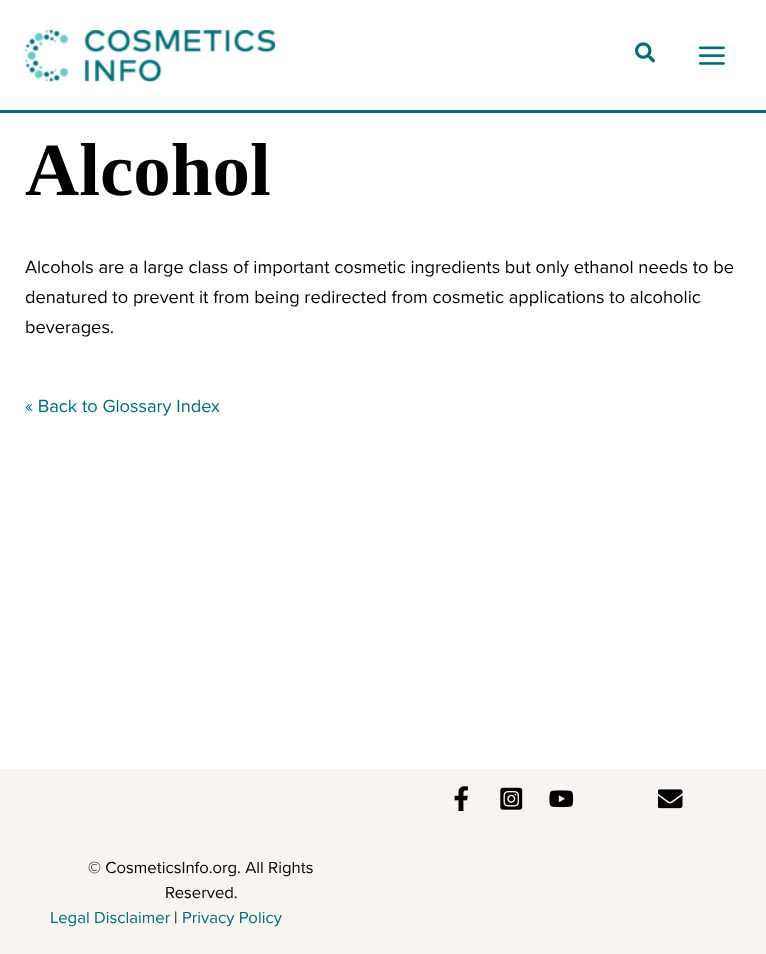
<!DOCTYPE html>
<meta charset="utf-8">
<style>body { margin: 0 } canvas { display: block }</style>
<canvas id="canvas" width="766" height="954"></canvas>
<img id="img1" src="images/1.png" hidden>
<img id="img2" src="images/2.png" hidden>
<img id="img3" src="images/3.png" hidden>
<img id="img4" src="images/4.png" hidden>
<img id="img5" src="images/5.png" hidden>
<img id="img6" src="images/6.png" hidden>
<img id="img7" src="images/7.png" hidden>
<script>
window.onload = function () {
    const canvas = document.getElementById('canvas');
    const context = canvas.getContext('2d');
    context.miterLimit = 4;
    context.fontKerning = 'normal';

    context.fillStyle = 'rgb(255, 255, 255)';
    context.fillRect(0, 0, 766, 954);
    context.fillStyle = 'rgb(0, 109, 119)';
    context.fillRect(0, 110, 766, 3);
    context.drawImage(document.getElementById('img1'), 25, 30, 250, 52);
    context.drawImage(document.getElementById('img2'), 635, 42, 20, 21);
    context.drawImage(document.getElementById('img3'), 698, 46, 27, 19);
    context.fillStyle = 'rgb(248, 244, 242)';
    context.fillRect(0, 769, 766, 185);
    context.drawImage(document.getElementById('img4'), 454, 786, 14, 25);
    context.drawImage(document.getElementById('img5'), 500, 787, 23, 23);
    context.drawImage(document.getElementById('img6'), 549, 790, 25, 18);
    context.drawImage(document.getElementById('img7'), 658, 789, 25, 20);
    context.font = 'bold 75px Liberation Serif';
    context.fillStyle = 'rgb(0, 0, 0)';
    context.fillText('Alcohol', 25, 195);
    context.font = '18.25px Proxima Nova';
    context.fillText('Alcohols are a large class of important cosmetic ingredients but only ethanol needs to be', 25, 273);
    context.fillText('denatured to prevent it from being redirected from cosmetic applications to alcoholic', 25, 303);
    context.fillText('beverages.', 25, 333);
    context.fillStyle = 'rgb(0, 109, 119)';
    context.fillText('« Back to Glossary Index', 25, 412);
    context.font = '16.7px Proxima Nova';
    context.fillStyle = 'rgb(0, 0, 0)';
    context.fillText('© CosmeticsInfo.org. All Rights', 88, 873);
    context.fillText('Reserved.', 165, 898);
    context.fillStyle = 'rgb(0, 109, 119)';
    context.fillText('Legal Disclaimer', 50, 923);
    context.fillStyle = 'rgb(0, 0, 0)';
    context.fillText('|', 174, 923);
    context.fillStyle = 'rgb(0, 109, 119)';
    context.fillText('Privacy Policy', 182, 923);
};
</script>
